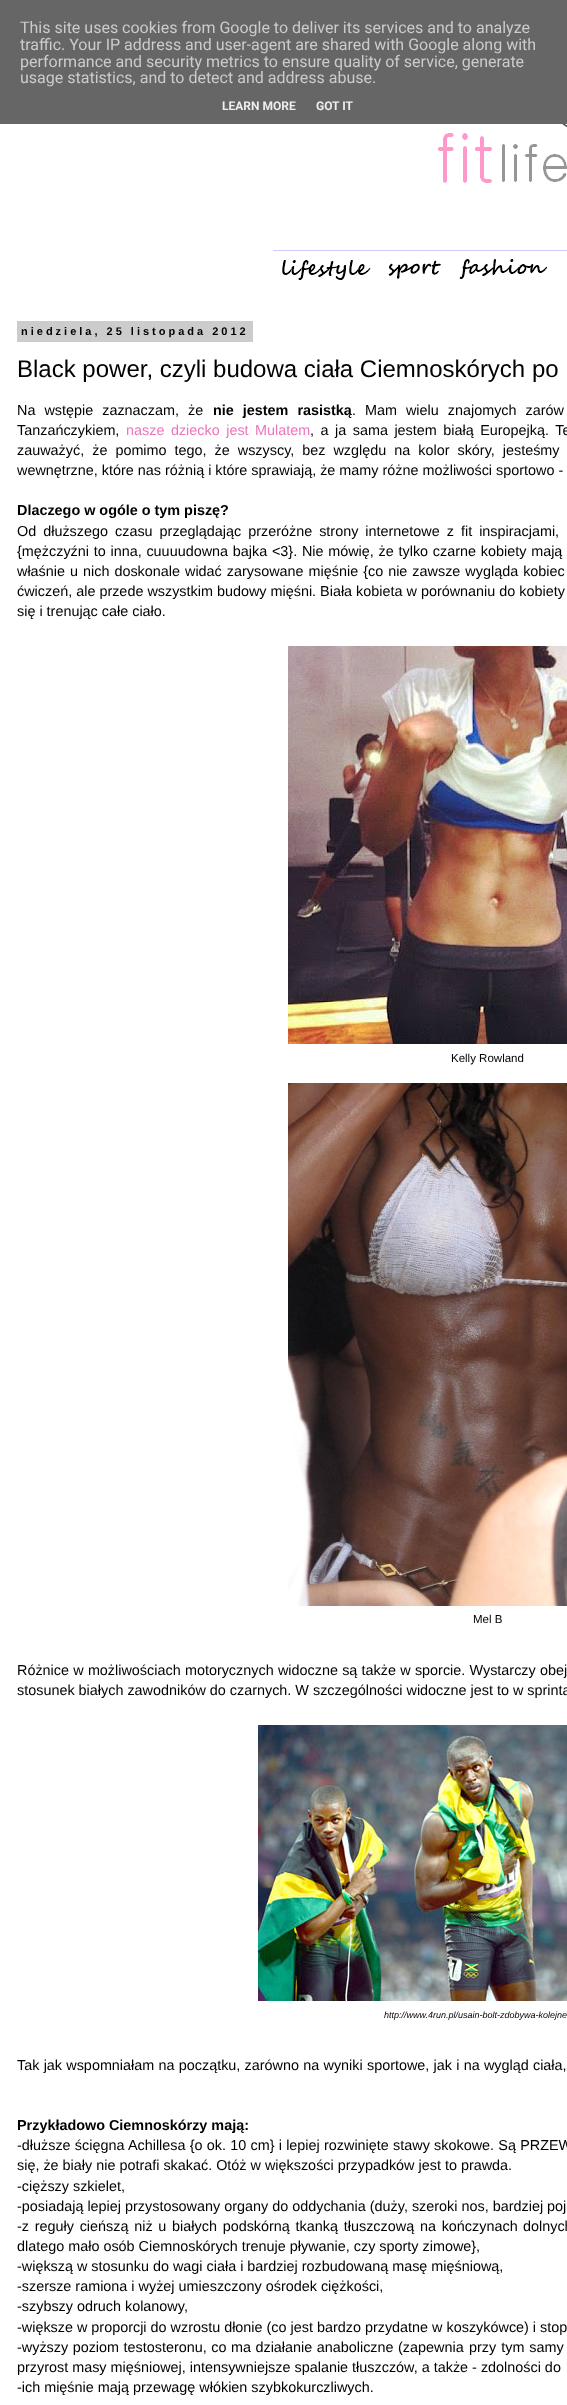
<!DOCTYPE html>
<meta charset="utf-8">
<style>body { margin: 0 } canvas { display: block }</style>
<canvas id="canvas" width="567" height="2405"></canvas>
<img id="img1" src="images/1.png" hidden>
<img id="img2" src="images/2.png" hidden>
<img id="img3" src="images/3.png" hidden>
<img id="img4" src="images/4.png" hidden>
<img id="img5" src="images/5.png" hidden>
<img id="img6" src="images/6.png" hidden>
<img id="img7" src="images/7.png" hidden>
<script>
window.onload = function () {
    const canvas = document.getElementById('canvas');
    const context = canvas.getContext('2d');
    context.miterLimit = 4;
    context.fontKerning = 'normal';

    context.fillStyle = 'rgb(255, 255, 255)';
    context.fillRect(0, 0, 567, 2405);
    context.fillStyle = 'rgb(102, 102, 102)';
    context.fillRect(0, 0, 567, 124);
    context.drawImage(document.getElementById('img1'), 437, 124, 130, 59);
    context.fillStyle = 'rgb(204, 204, 255)';
    context.fillRect(273, 250, 294, 1);
    context.drawImage(document.getElementById('img2'), 282, 260, 89, 20);
    context.drawImage(document.getElementById('img3'), 388, 260, 53, 19);
    context.drawImage(document.getElementById('img4'), 459, 259, 88, 20);
    context.fillStyle = 'rgb(204, 204, 204)';
    context.fillRect(17, 321, 236, 21);
    context.drawImage(document.getElementById('img5'), 288, 646, 279, 398);
    context.drawImage(document.getElementById('img6'), 288, 1083, 279, 523);
    context.drawImage(document.getElementById('img7'), 258, 1725, 309, 276);
    context.font = '16px Roboto';
    context.fillText('This site uses cookies from Google to deliver its services and to analyze', 20, 33);
    context.fillText('traffic. Your IP address and user-agent are shared with Google along with', 20, 50);
    context.fillText('performance and security metrics to ensure quality of service, generate', 20, 67);
    context.fillText('usage statistics, and to detect and address abuse.', 20, 83);
    context.font = 'bold 12px Roboto';
    context.fillStyle = 'rgb(238, 238, 238)';
    context.fillText('LEARN MORE', 222, 110);
    context.fillText('GOT IT', 316, 110);
    context.letterSpacing = '3px';
    context.font = 'bold 11px Liberation Sans';
    context.fillStyle = 'rgb(0, 0, 0)';
    context.fillText('niedziela, 25 listopada 2012', 21, 335);
    context.letterSpacing = '0px';
    context.font = '24px Liberation Sans';
    context.fillText('Black power, czyli budowa ciała Ciemnoskórych po', 17, 377);
    context.wordSpacing = '5px';
    context.font = '14.4px Liberation Sans';
    context.fillText('Na wstępie zaznaczam, że', 17, 415);
    context.font = 'bold 14.4px Liberation Sans';
    context.fillText('nie jestem rasistką', 213, 415);
    context.font = '14.4px Liberation Sans';
    context.fillText('. Mam wielu znajomych zarów', 352, 415);
    context.wordSpacing = '0px';
    context.fillText('Tanzańczykiem,', 17, 435);
    context.wordSpacing = '2.5px';
    context.fillStyle = 'rgb(238, 117, 186)';
    context.fillText('nasze dziecko jest Mulatem', 126, 435);
    context.fillStyle = 'rgb(0, 0, 0)';
    context.fillText(', a ja sama jestem białą Europejką. Te', 310, 435);
    context.wordSpacing = '4px';
    context.fillText('zauważyć, że pomimo tego, że wszyscy, bez względu na kolor skóry, jesteśmy', 17, 455);
    context.wordSpacing = '0px';
    context.fillText('wewnętrzne, które nas różnią i które sprawiają, że mamy różne możliwości sportowo -', 17, 475);
    context.font = 'bold 14.4px Liberation Sans';
    context.fillText('Dlaczego w ogóle o tym piszę?', 17, 515);
    context.wordSpacing = '3px';
    context.font = '14.4px Liberation Sans';
    context.fillText('Od dłuższego czasu przeglądając przeróżne strony internetowe z fit inspiracjami,', 17, 536);
    context.wordSpacing = '0.75px';
    context.fillText('{mężczyźni to inna, cuuuudowna bajka <3}. Nie mówię, że tylko czarne kobiety mają', 17, 556);
    context.wordSpacing = '1px';
    context.fillText('właśnie u nich doskonale widać zarysowane mięśnie {co nie zawsze wygląda kobiec', 17, 576);
    context.wordSpacing = '0px';
    context.fillText('ćwiczeń, ale przede wszystkim budowy mięśni. Biała kobieta w porównaniu do kobiety', 17, 596);
    context.fillText('się i trenując całe ciało.', 17, 616);
    context.font = '11.5px Liberation Sans';
    context.fillText('Kelly Rowland', 451, 1062);
    context.fillText('Mel B', 473, 1623);
    context.wordSpacing = '0.25px';
    context.font = '14.4px Liberation Sans';
    context.fillText('Różnice w możliwościach motorycznych widoczne są także w sporcie. Wystarczy obej', 17, 1675);
    context.wordSpacing = '0px';
    context.fillText('stosunek białych zawodników do czarnych. W szczególności widoczne jest to w sprinta', 17, 1695);
    context.font = 'italic 9px Liberation Sans';
    context.fillText('http://www.4run.pl/usain-bolt-zdobywa-kolejne', 384, 2018);
    context.wordSpacing = '0.25px';
    context.font = '14.4px Liberation Sans';
    context.fillText('Tak jak wspomniałam na początku, zarówno na wyniki sportowe, jak i na wygląd ciała,', 17, 2070);
    context.wordSpacing = '0px';
    context.font = 'bold 14.4px Liberation Sans';
    context.fillText('Przykładowo Ciemnoskórzy mają:', 17, 2130);
    context.wordSpacing = '0.25px';
    context.font = '14.4px Liberation Sans';
    context.fillText('-dłuższe ścięgna Achillesa {o ok. 10 cm} i lepiej rozwinięte stawy skokowe. Są PRZEW', 17, 2150);
    context.wordSpacing = '0px';
    context.fillText('się, że biały nie potrafi skakać. Otóż w większości przypadków jest to prawda.', 17, 2170);
    context.fillText('-cięższy szkielet,', 17, 2191);
    context.fillText('-posiadają lepiej przystosowany organy do oddychania (duży, szeroki nos, bardziej poj', 17, 2211);
    context.wordSpacing = '1.75px';
    context.fillText('-z reguły cieńszą niż u białych podskórną tkanką tłuszczową na kończynach', 17, 2231);
    context.fillText('dolnych', 523, 2231);
    context.wordSpacing = '0px';
    context.fillText('dlatego mało osób Ciemnoskórych trenuje pływanie, czy sporty zimowe},', 17, 2251);
    context.fillText('-większą w stosunku do wagi ciała i bardziej rozbudowaną masę mięśniową,', 17, 2271);
    context.fillText('-szersze ramiona i wyżej umieszczony ośrodek ciężkości,', 17, 2291);
    context.fillText('-szybszy odruch kolanowy,', 17, 2311);
    context.fillText('-większe w proporcji do wzrostu dłonie (co jest bardzo przydatne w koszykówce) i stop', 17, 2332);
    context.wordSpacing = '0.5px';
    context.fillText('-wyższy poziom testosteronu, co ma działanie anaboliczne (zapewnia', 17, 2352);
    context.wordSpacing = '1px';
    context.fillText('przy tym samy', 469, 2352);
    context.wordSpacing = '0px';
    context.fillText('przyrost masy mięśniowej, intensywniejsze spalanie tłuszczów, a także - zdolności do', 17, 2372);
    context.fillText('-ich mięśnie mają przewagę włókien szybkokurczliwych.', 17, 2392);
};
</script>
